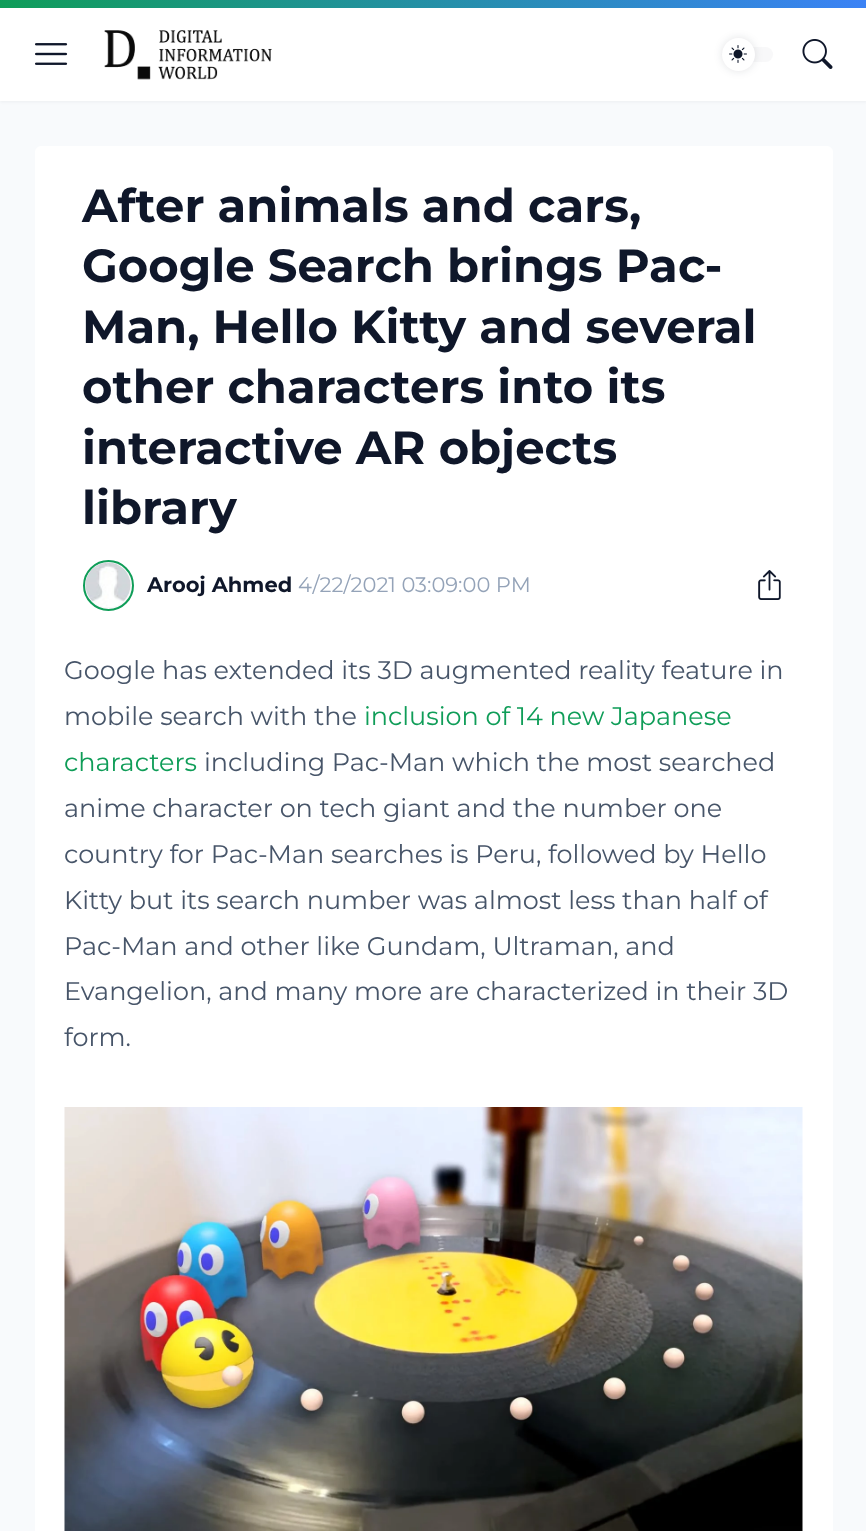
<!DOCTYPE html>
<meta charset="utf-8">
<style>body { margin: 0 } canvas { display: block }</style>
<canvas id="canvas" width="866" height="1531"></canvas>
<img id="img1" src="images/1.png" hidden>
<img id="img2" src="images/2.png" hidden>
<img id="img3" src="images/3.png" hidden>
<img id="img4" src="images/4.png" hidden>
<img id="img5" src="images/5.png" hidden>
<img id="img6" src="images/6.png" hidden>
<img id="img7" src="images/7.png" hidden>
<script>
window.onload = function () {
    const canvas = document.getElementById('canvas');
    const context = canvas.getContext('2d');
    context.miterLimit = 4;
    context.fontKerning = 'normal';
    let gradient;

    context.fillStyle = 'rgb(248, 250, 252)';
    context.fillRect(0, 0, 866, 1531);
    context.fillStyle = 'rgba(15, 23, 42, 0.05)';
    context.filter = 'blur(1.5px)';
    context.beginPath();
    context.rect(0, 2, 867, 100);
    context.fill();
    context.filter = 'none';
    gradient = context.createLinearGradient(215, 222, 652, -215);
    gradient.addColorStop(0, 'rgb(15, 157, 88)');
    gradient.addColorStop(1, 'rgb(59, 130, 246)');
    context.fillStyle = gradient;
    context.fillRect(0, 0, 866, 8);
    context.fillStyle = 'rgb(255, 255, 255)';
    context.fillRect(0, 8, 866, 93);
    context.drawImage(document.getElementById('img1'), 35, 43, 33, 22);
    context.drawImage(document.getElementById('img2'), 104, 30, 168, 50);
    context.fillStyle = 'rgb(248, 248, 249)';
    context.beginPath();
    context.roundRect(722, 47, 51, 15, 7.5);
    context.fill();
    context.fillStyle = 'rgba(15, 23, 42, 0.12)';
    context.filter = 'blur(4px)';
    context.beginPath();
    context.roundRect(722, 38, 33, 33, 16.5);
    context.fill();
    context.filter = 'none';
    context.fillStyle = 'rgb(255, 255, 255)';
    context.beginPath();
    context.arc(738.5, 54.5, 16.5, 0, 2 * Math.PI);
    context.fill();
    context.drawImage(document.getElementById('img3'), 729, 45, 18, 18);
    context.drawImage(document.getElementById('img4'), 802, 39, 31, 30);
    context.beginPath();
    context.roundRect(35, 146, 798, 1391, 6);
    context.fill();
    context.fillStyle = 'rgb(248, 248, 249)';
    context.beginPath();
    context.arc(108.5, 585.5, 24.5, 0, 2 * Math.PI);
    context.fill();
    context.strokeStyle = 'rgb(15, 157, 88)';
    context.lineWidth = 2;
    context.stroke();
    context.drawImage(document.getElementById('img5'), 85, 562, 46, 45);
    context.drawImage(document.getElementById('img6'), 758, 570, 23, 30);
    context.drawImage(document.getElementById('img7'), 64, 1107, 739, 424);
    context.font = 'bold 46.5px Montserrat';
    context.fillStyle = 'rgb(15, 23, 42)';
    context.fillText('After animals and cars,', 82, 222);
    context.fillText('Google Search brings Pac-', 82, 282);
    context.fillText('Man, Hello Kitty and several', 82, 343);
    context.fillText('other characters into its', 82, 403);
    context.fillText('interactive AR objects', 82, 464);
    context.fillText('library', 82, 524);
    context.font = 'bold 21px Montserrat';
    context.fillText('Arooj Ahmed', 147, 592);
    context.font = '100 21px Montserrat';
    context.fillStyle = 'rgb(148, 163, 184)';
    context.fillText('4/22/2021 03:09:00 PM', 298, 592);
    context.font = '100 25.5px Montserrat';
    context.fillStyle = 'rgb(71, 85, 105)';
    context.fillText('Google has extended its 3D augmented reality feature in', 64, 679);
    context.fillText('mobile search with the', 64, 725);
    context.fillStyle = 'rgb(15, 157, 88)';
    context.fillText('inclusion of 14 new Japanese', 364, 725);
    context.fillText('characters', 64, 771);
    context.fillStyle = 'rgb(71, 85, 105)';
    context.fillText('including Pac-Man which the most searched', 204, 771);
    context.fillText('anime character on tech giant and the number one', 64, 817);
    context.fillText('country for Pac-Man searches is Peru, followed by Hello', 64, 863);
    context.fillText('Kitty but its search number was almost less than half of', 64, 909);
    context.fillText('Pac-Man and other like Gundam, Ultraman, and', 64, 955);
    context.fillText('Evangelion, and many more are characterized in their 3D', 64, 1000);
    context.fillText('form.', 64, 1046);
};
</script>
